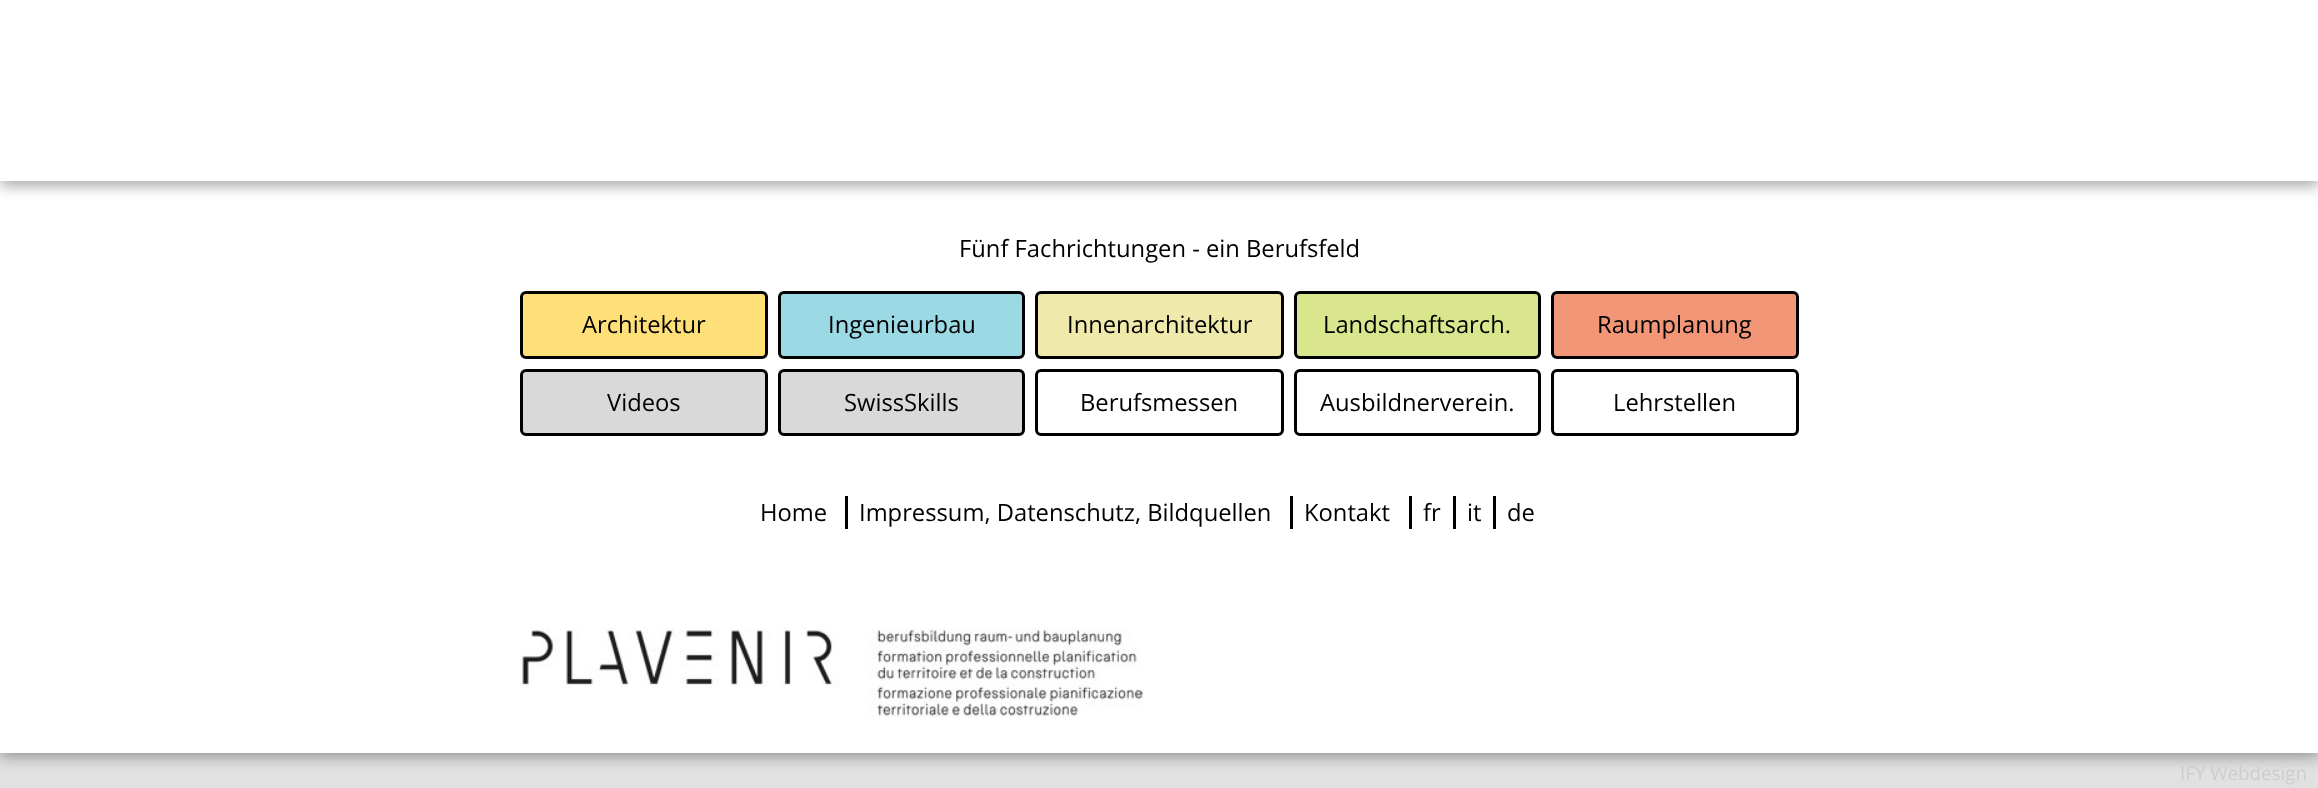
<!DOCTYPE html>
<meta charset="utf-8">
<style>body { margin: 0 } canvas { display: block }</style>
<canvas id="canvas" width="2318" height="788"></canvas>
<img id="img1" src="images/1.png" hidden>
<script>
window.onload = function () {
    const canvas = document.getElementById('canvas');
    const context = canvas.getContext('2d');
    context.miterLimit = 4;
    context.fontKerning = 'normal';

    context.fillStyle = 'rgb(225, 225, 225)';
    context.fillRect(0, 0, 2318, 788);
    context.fillStyle = 'rgba(0, 0, 0, 0.16)';
    context.filter = 'blur(7.5px)';
    context.beginPath();
    context.rect(0, 185, 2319, 571);
    context.fill();
    context.filter = 'none';
    context.fillStyle = 'rgba(0, 0, 0, 0.23)';
    context.filter = 'blur(7.5px)';
    context.beginPath();
    context.rect(0, 185, 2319, 571);
    context.fill();
    context.filter = 'none';
    context.fillStyle = 'rgb(255, 255, 255)';
    context.fillRect(0, 181, 2318, 572);
    context.fillStyle = 'rgba(0, 0, 0, 0.16)';
    context.filter = 'blur(7.5px)';
    context.beginPath();
    context.rect(0, -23, 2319, 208);
    context.fill();
    context.filter = 'none';
    context.fillStyle = 'rgba(0, 0, 0, 0.23)';
    context.filter = 'blur(7.5px)';
    context.beginPath();
    context.rect(0, -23, 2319, 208);
    context.fill();
    context.filter = 'none';
    context.fillStyle = 'rgb(255, 255, 255)';
    context.fillRect(0, 0, 2318, 181);
    context.fillStyle = 'rgb(255, 223, 120)';
    context.beginPath();
    context.roundRect(521.5, 292.5, 245, 65, 4.5);
    context.fill();
    context.strokeStyle = 'rgb(0, 0, 0)';
    context.lineWidth = 3;
    context.stroke();
    context.fillStyle = 'rgb(155, 217, 228)';
    context.beginPath();
    context.roundRect(779.5, 292.5, 244, 65, 4.5);
    context.fill();
    context.stroke();
    context.fillStyle = 'rgb(239, 233, 171)';
    context.beginPath();
    context.roundRect(1036.5, 292.5, 246, 65, 4.5);
    context.fill();
    context.stroke();
    context.fillStyle = 'rgb(217, 230, 142)';
    context.beginPath();
    context.roundRect(1295.5, 292.5, 244, 65, 4.5);
    context.fill();
    context.stroke();
    context.fillStyle = 'rgb(241, 150, 119)';
    context.beginPath();
    context.roundRect(1552.5, 292.5, 245, 65, 4.5);
    context.fill();
    context.stroke();
    context.fillStyle = 'rgb(217, 217, 217)';
    context.beginPath();
    context.roundRect(521.5, 370.5, 245, 64, 4.5);
    context.fill();
    context.stroke();
    context.beginPath();
    context.roundRect(779.5, 370.5, 244, 64, 4.5);
    context.fill();
    context.stroke();
    context.beginPath();
    context.roundRect(1036.5, 370.5, 246, 64, 4.5);
    context.stroke();
    context.beginPath();
    context.roundRect(1295.5, 370.5, 244, 64, 4.5);
    context.stroke();
    context.beginPath();
    context.roundRect(1552.5, 370.5, 245, 64, 4.5);
    context.stroke();
    context.fillStyle = 'rgb(0, 0, 0)';
    context.fillRect(845, 496, 3, 33);
    context.fillRect(1290, 496, 3, 33);
    context.fillRect(1409, 496, 3, 33);
    context.fillRect(1453, 496, 3, 33);
    context.fillRect(1493, 496, 3, 33);
    context.drawImage(document.getElementById('img1'), 520, 628, 625, 90);
    context.font = '23.75px Open Sans';
    context.fillText('Fünf Fachrichtungen - ein Berufsfeld', 959, 257);
    context.fillText('Architektur', 582, 333);
    context.fillText('Ingenieurbau', 828, 333);
    context.fillText('Innenarchitektur', 1067, 333);
    context.fillText('Landschaftsarch.', 1323, 333);
    context.fillText('Raumplanung', 1597, 333);
    context.fillText('Videos', 607, 411);
    context.fillText('SwissSkills', 844, 411);
    context.fillText('Berufsmessen', 1080, 411);
    context.fillText('Ausbildnerverein.', 1320, 411);
    context.fillText('Lehrstellen', 1613, 411);
    context.fillText('Home', 760, 521);
    context.fillText('Impressum, Datenschutz, Bildquellen', 859, 521);
    context.fillText('Kontakt', 1304, 521);
    context.fillText('fr', 1423, 521);
    context.fillText('it', 1467, 521);
    context.fillText('de', 1507, 521);
    context.font = '18.75px Open Sans';
    context.fillStyle = 'rgb(205, 205, 205)';
    context.fillText('IFY Webdesign', 2180, 780);
};
</script>
